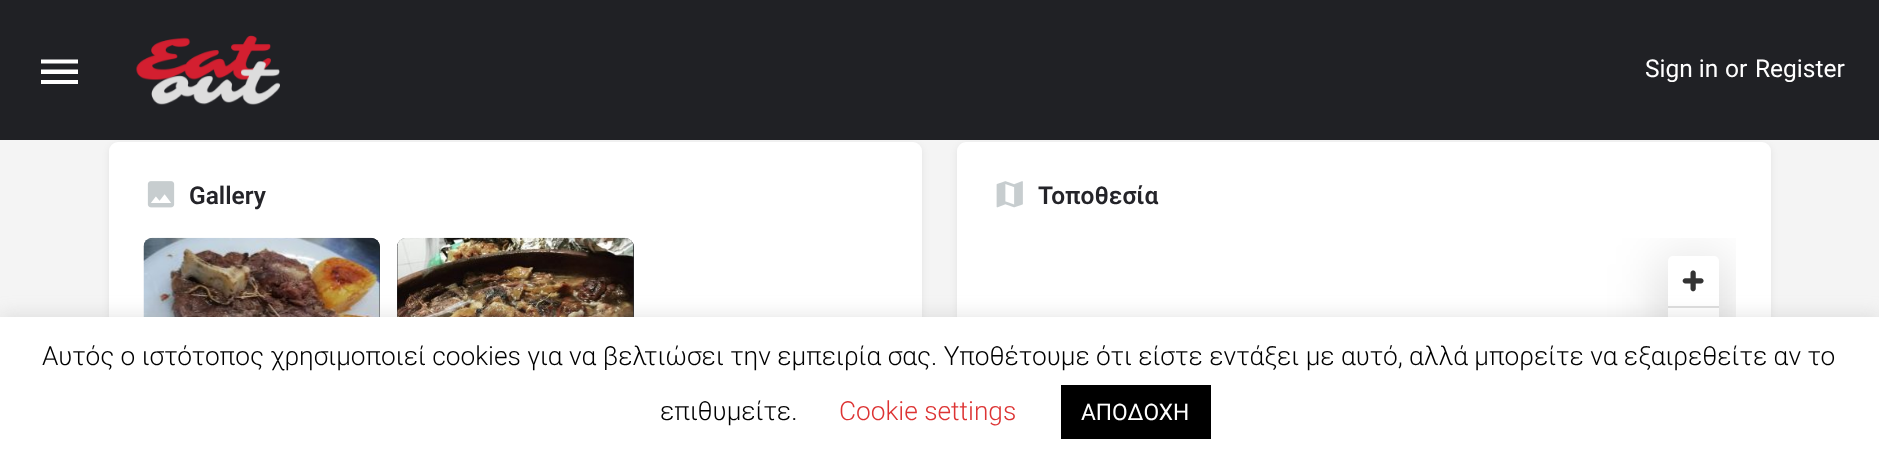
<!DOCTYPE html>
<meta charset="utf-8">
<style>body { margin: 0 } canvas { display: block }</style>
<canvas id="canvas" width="1879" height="469"></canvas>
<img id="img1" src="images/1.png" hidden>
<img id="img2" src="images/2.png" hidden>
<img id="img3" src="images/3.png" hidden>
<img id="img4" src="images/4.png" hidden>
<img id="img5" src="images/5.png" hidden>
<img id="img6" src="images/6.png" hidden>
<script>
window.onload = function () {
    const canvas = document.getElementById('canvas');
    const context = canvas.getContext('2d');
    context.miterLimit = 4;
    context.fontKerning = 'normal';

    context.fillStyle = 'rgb(244, 244, 244)';
    context.fillRect(0, 0, 1879, 469);
    context.fillStyle = 'rgba(0, 0, 0, 0.07)';
    context.filter = 'blur(3.5px)';
    context.beginPath();
    context.roundRect(109, 144, 813, 309, 9);
    context.fill();
    context.filter = 'none';
    context.filter = 'blur(3.5px)';
    context.beginPath();
    context.roundRect(957, 144, 814, 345, 9);
    context.fill();
    context.filter = 'none';
    context.fillStyle = 'rgb(32, 33, 37)';
    context.fillRect(0, 0, 1879, 140);
    context.fillStyle = 'rgb(255, 255, 255)';
    context.beginPath();
    context.moveTo(41, 59.5);
    context.lineTo(78, 59.5);
    context.lineTo(78, 63.5);
    context.lineTo(41, 63.5);
    context.closePath();
    context.moveTo(41, 74);
    context.lineTo(41, 69.5);
    context.lineTo(78, 69.5);
    context.lineTo(78, 74);
    context.closePath();
    context.moveTo(41, 84);
    context.lineTo(41, 80);
    context.lineTo(78, 80);
    context.lineTo(78, 84);
    context.closePath();
    context.fill();
    context.drawImage(document.getElementById('img1'), 136, 35, 144, 70);
    context.beginPath();
    context.roundRect(109, 142, 813, 310, 9);
    context.fill();
    context.drawImage(document.getElementById('img2'), 147, 181, 28, 27);
    context.fillStyle = 'rgb(36, 36, 41)';
    context.beginPath();
    context.roundRect(144, 238, 236, 179, 9);
    context.fill();
    context.drawImage(document.getElementById('img3'), 143, 237, 237, 80);
    context.beginPath();
    context.roundRect(397, 238, 237, 179, 9);
    context.fill();
    context.drawImage(document.getElementById('img4'), 397, 237, 237, 80);
    context.fillStyle = 'rgb(255, 255, 255)';
    context.beginPath();
    context.roundRect(957, 142, 814, 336, 9);
    context.fill();
    context.drawImage(document.getElementById('img5'), 996, 181, 27, 27);
    context.save();
    context.beginPath();
    context.rect(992, 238, 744, 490);
    context.clip();
    context.fillStyle = 'rgba(0, 0, 0, 0.2)';
    context.filter = 'blur(29px)';
    context.beginPath();
    context.roundRect(1668, 264, 51, 102, 5);
    context.fill();
    context.filter = 'none';
    context.restore();
    context.beginPath();
    context.roundRect(1668, 256, 51, 101, 5);
    context.fill();
    context.drawImage(document.getElementById('img6'), 1682, 270, 22, 22);
    context.fillStyle = 'rgb(221, 221, 221)';
    context.fillRect(1668, 306, 51, 2);
    context.fillStyle = 'rgba(172, 171, 171, 0.3)';
    context.filter = 'blur(9px)';
    context.beginPath();
    context.rect(0, 315, 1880, 152);
    context.fill();
    context.filter = 'none';
    context.fillStyle = 'rgb(255, 255, 255)';
    context.fillRect(0, 317, 1879, 152);
    context.fillStyle = 'rgb(0, 0, 0)';
    context.fillRect(1061, 385, 150, 54);
    context.font = '24.5px Roboto';
    context.fillStyle = 'rgb(255, 255, 255)';
    context.fillText('Sign in', 1645, 77);
    context.fillText('or', 1725, 77);
    context.fillText('Register', 1755, 77);
    context.font = '600 24.5px Roboto';
    context.fillStyle = 'rgb(36, 36, 41)';
    context.fillText('Gallery', 189, 204);
    context.fillText('Τοποθεσία', 1038, 204);
    context.font = '300 26.25px Roboto';
    context.fillStyle = 'rgb(0, 0, 0)';
    context.fillText('Αυτός ο ιστότοπος χρησιμοποιεί cookies για να βελτιώσει την εμπειρία σας. Υποθέτουμε ότι είστε εντάξει με αυτό, αλλά μπορείτε να εξαιρεθείτε αν το', 42, 365);
    context.fillText('επιθυμείτε.', 660, 420);
    context.fillStyle = 'rgb(221, 51, 51)';
    context.fillText('Cookie settings', 839, 420);
    context.font = '22.75px Roboto';
    context.fillStyle = 'rgb(255, 255, 255)';
    context.fillText('ΑΠΟΔΟΧΗ', 1081, 420);
};
</script>
